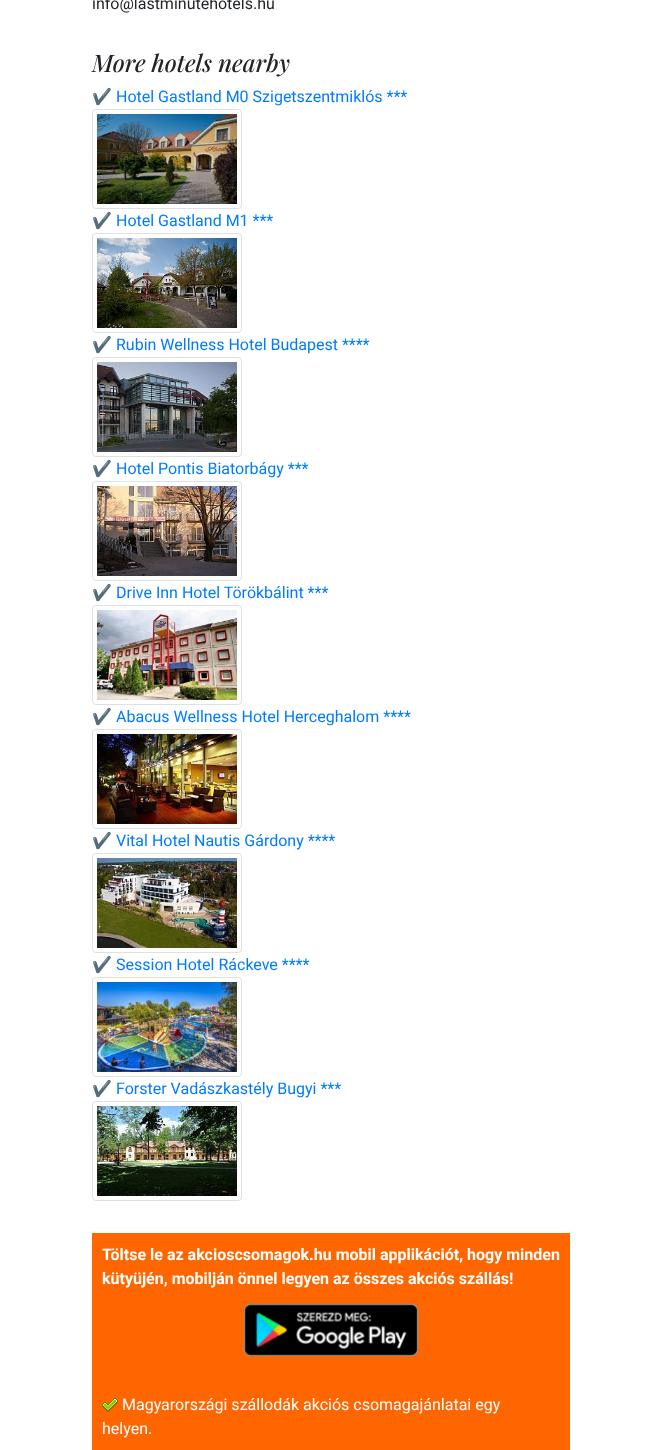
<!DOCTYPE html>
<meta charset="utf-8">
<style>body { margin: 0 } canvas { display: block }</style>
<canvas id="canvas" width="662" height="1450"></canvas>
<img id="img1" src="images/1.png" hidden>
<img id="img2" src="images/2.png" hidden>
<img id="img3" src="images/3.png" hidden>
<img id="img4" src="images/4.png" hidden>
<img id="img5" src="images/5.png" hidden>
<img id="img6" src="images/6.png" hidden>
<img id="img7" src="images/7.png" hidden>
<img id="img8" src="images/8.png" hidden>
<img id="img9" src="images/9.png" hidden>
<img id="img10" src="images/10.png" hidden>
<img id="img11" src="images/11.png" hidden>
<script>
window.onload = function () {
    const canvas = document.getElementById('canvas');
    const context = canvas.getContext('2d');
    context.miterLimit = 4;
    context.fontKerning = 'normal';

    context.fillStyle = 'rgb(255, 255, 255)';
    context.fillRect(0, 0, 662, 1450);
    context.beginPath();
    context.roundRect(92.5, 109.5, 149, 99, 3.5);
    context.strokeStyle = 'rgb(222, 226, 230)';
    context.stroke();
    context.drawImage(document.getElementById('img1'), 97, 114, 140, 90);
    context.beginPath();
    context.roundRect(92.5, 233.5, 149, 99, 3.5);
    context.stroke();
    context.drawImage(document.getElementById('img2'), 97, 238, 140, 90);
    context.beginPath();
    context.roundRect(92.5, 357.5, 149, 99, 3.5);
    context.stroke();
    context.drawImage(document.getElementById('img3'), 97, 362, 140, 90);
    context.beginPath();
    context.roundRect(92.5, 481.5, 149, 99, 3.5);
    context.stroke();
    context.drawImage(document.getElementById('img4'), 97, 486, 140, 90);
    context.beginPath();
    context.roundRect(92.5, 605.5, 149, 99, 3.5);
    context.stroke();
    context.drawImage(document.getElementById('img5'), 97, 610, 140, 90);
    context.beginPath();
    context.roundRect(92.5, 729.5, 149, 99, 3.5);
    context.stroke();
    context.drawImage(document.getElementById('img6'), 97, 734, 140, 90);
    context.beginPath();
    context.roundRect(92.5, 853.5, 149, 99, 3.5);
    context.stroke();
    context.drawImage(document.getElementById('img7'), 97, 858, 140, 90);
    context.beginPath();
    context.roundRect(92.5, 977.5, 149, 99, 3.5);
    context.stroke();
    context.drawImage(document.getElementById('img8'), 97, 982, 140, 90);
    context.beginPath();
    context.roundRect(92.5, 1101.5, 149, 99, 3.5);
    context.stroke();
    context.drawImage(document.getElementById('img9'), 97, 1106, 140, 90);
    context.fillStyle = 'rgb(255, 102, 0)';
    context.fillRect(92, 1233, 478, 217);
    context.drawImage(document.getElementById('img10'), 243, 1303, 176, 54);
    context.drawImage(document.getElementById('img11'), 102, 1398, 16, 14);
    context.font = '16px Roboto';
    context.fillStyle = 'rgb(33, 37, 41)';
    context.fillText('info@lastminutehotels.hu', 92, 9);
    context.font = 'italic 500 24px Playfair Display';
    context.fillText('More hotels nearby', 92, 72);
    context.font = '16px Noto Color Emoji';
    context.fillStyle = 'rgb(0, 123, 255)';
    context.fillText('✔️', 92, 102);
    context.font = '16px Roboto';
    context.fillText('Hotel Gastland M0 Szigetszentmiklós ***', 116, 102);
    context.font = '16px Noto Color Emoji';
    context.fillText('✔️', 92, 226);
    context.font = '16px Roboto';
    context.fillText('Hotel Gastland M1 ***', 116, 226);
    context.font = '16px Noto Color Emoji';
    context.fillText('✔️', 92, 350);
    context.font = '16px Roboto';
    context.fillText('Rubin Wellness Hotel Budapest ****', 116, 350);
    context.font = '16px Noto Color Emoji';
    context.fillText('✔️', 92, 474);
    context.font = '16px Roboto';
    context.fillText('Hotel Pontis Biatorbágy ***', 116, 474);
    context.font = '16px Noto Color Emoji';
    context.fillText('✔️', 92, 598);
    context.font = '16px Roboto';
    context.fillText('Drive Inn Hotel Törökbálint ***', 116, 598);
    context.font = '16px Noto Color Emoji';
    context.fillText('✔️', 92, 722);
    context.font = '16px Roboto';
    context.fillText('Abacus Wellness Hotel Herceghalom ****', 116, 722);
    context.font = '16px Noto Color Emoji';
    context.fillText('✔️', 92, 846);
    context.font = '16px Roboto';
    context.fillText('Vital Hotel Nautis Gárdony ****', 116, 846);
    context.font = '16px Noto Color Emoji';
    context.fillText('✔️', 92, 970);
    context.font = '16px Roboto';
    context.fillText('Session Hotel Ráckeve ****', 116, 970);
    context.font = '16px Noto Color Emoji';
    context.fillText('✔️', 92, 1094);
    context.font = '16px Roboto';
    context.fillText('Forster Vadászkastély Bugyi ***', 116, 1094);
    context.font = 'bold 16px Roboto';
    context.fillStyle = 'rgb(255, 255, 255)';
    context.fillText('Töltse le az akcioscsomagok.hu mobil applikációt, hogy minden', 102, 1260);
    context.fillText('kütyüjén, mobilján önnel legyen az összes akciós szállás!', 102, 1284);
    context.font = '16px Roboto';
    context.fillText('Magyarországi szállodák akciós csomagajánlatai egy', 122, 1410);
    context.fillText('helyen.', 102, 1434);
};
</script>
